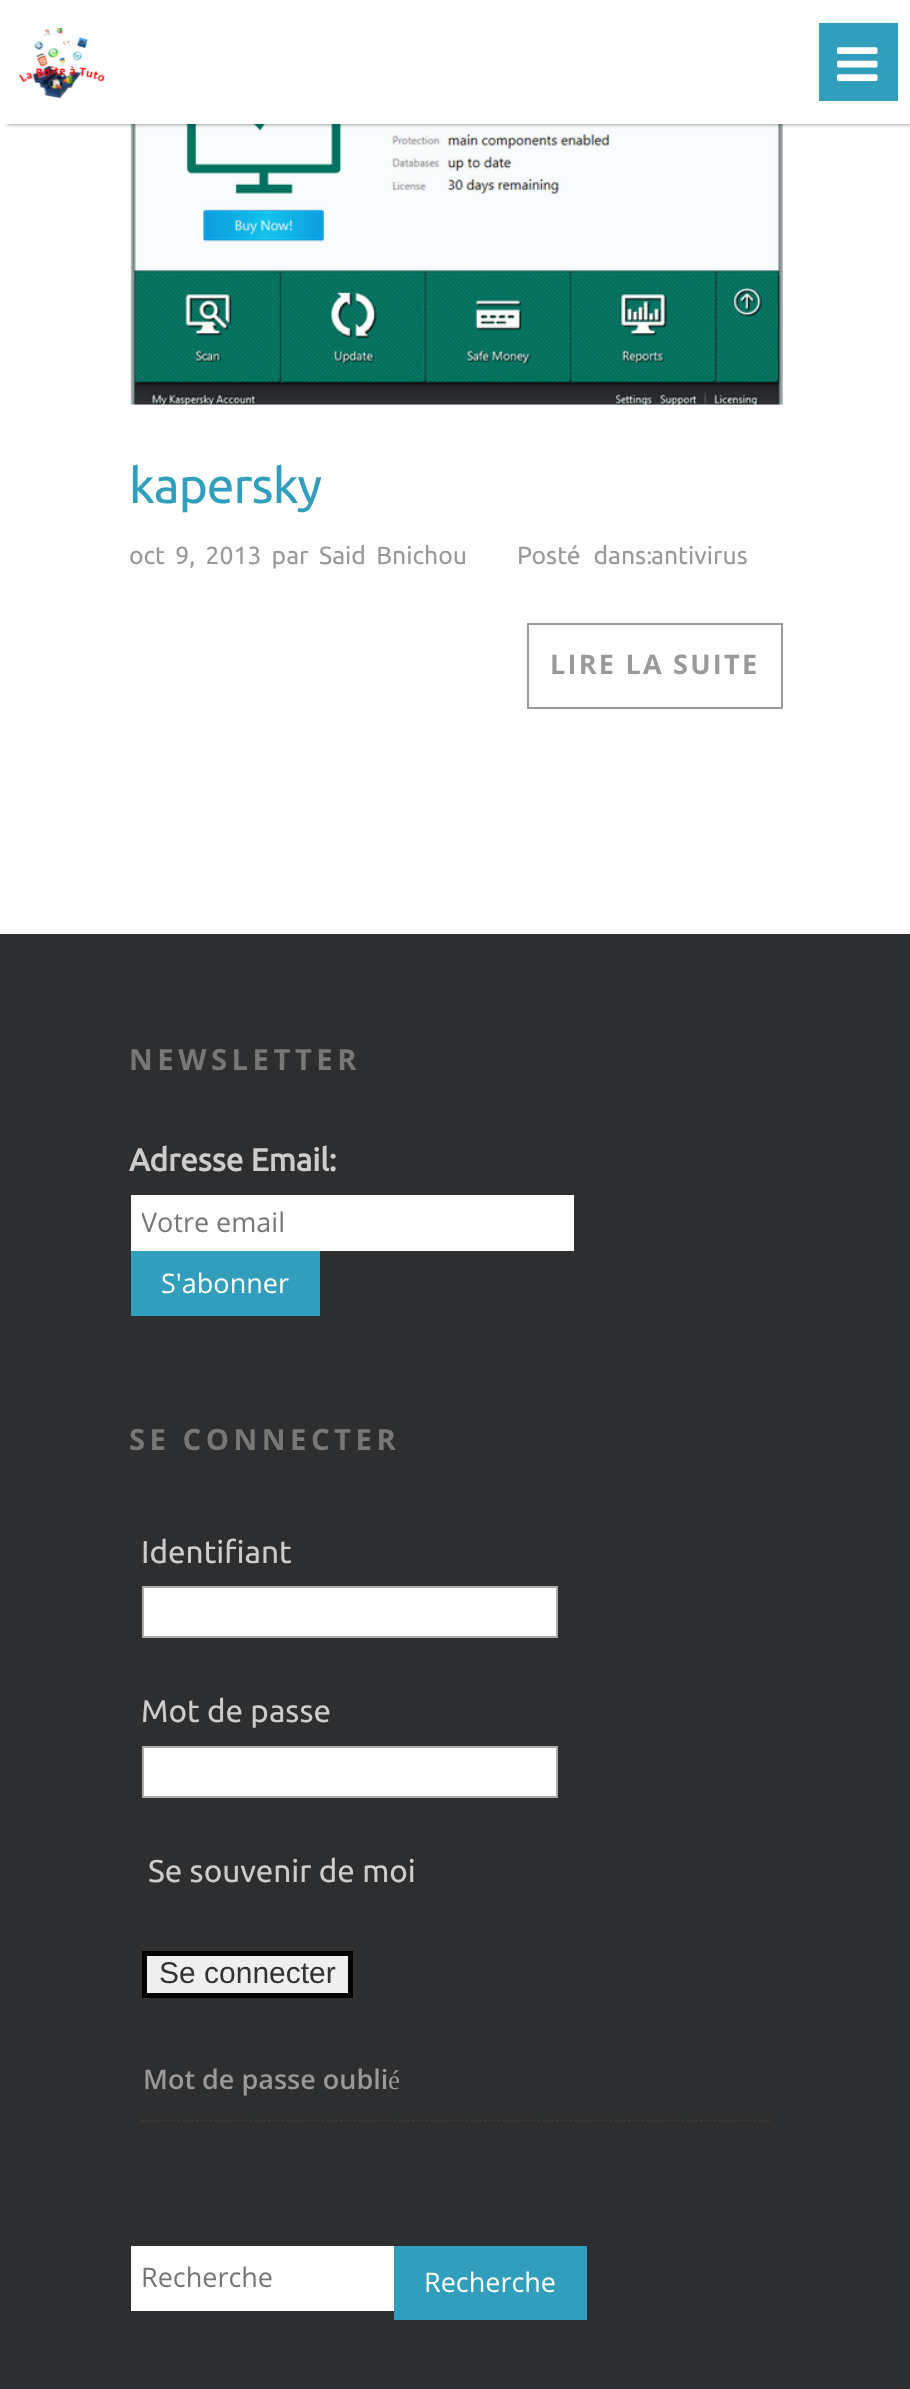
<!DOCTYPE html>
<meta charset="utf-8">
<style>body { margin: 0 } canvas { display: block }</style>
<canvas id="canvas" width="910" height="2389"></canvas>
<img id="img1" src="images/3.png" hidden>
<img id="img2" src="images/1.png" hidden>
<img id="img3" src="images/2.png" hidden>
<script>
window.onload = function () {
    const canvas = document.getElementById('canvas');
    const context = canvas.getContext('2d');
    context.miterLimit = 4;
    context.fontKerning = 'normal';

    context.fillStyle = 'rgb(255, 255, 255)';
    context.fillRect(0, 0, 910, 2389);
    context.drawImage(document.getElementById('img1'), 130, 124, 653, 281);
    context.fillStyle = 'rgba(0, 0, 0, 0.5)';
    context.filter = 'blur(2px)';
    context.beginPath();
    context.rect(7, 0, 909, 124);
    context.fill();
    context.filter = 'none';
    context.fillStyle = 'rgb(255, 255, 255)';
    context.fillRect(3, 0, 907, 124);
    context.drawImage(document.getElementById('img2'), 19, 28, 86, 70);
    context.fillStyle = 'rgb(49, 159, 187)';
    context.fillRect(819, 23, 79, 78);
    context.drawImage(document.getElementById('img3'), 837, 47, 41, 34);
    context.strokeStyle = 'rgb(153, 153, 153)';
    context.lineWidth = 2;
    context.strokeRect(528, 624, 254, 84);
    context.fillStyle = 'rgb(45, 46, 47)';
    context.fillRect(0, 934, 910, 1455);
    context.fillStyle = 'rgb(255, 255, 255)';
    context.fillRect(131, 1195, 443, 56);
    context.fillStyle = 'rgb(49, 159, 187)';
    context.fillRect(131, 1251, 189, 65);
    context.fillStyle = 'rgb(255, 255, 255)';
    context.beginPath();
    context.rect(143, 1587, 414, 50);
    context.fill();
    context.strokeStyle = 'rgb(170, 170, 170)';
    context.stroke();
    context.beginPath();
    context.rect(143, 1747, 414, 50);
    context.fill();
    context.stroke();
    context.fillStyle = 'rgb(239, 239, 239)';
    context.beginPath();
    context.rect(144.5, 1953.5, 206, 42);
    context.fill();
    context.strokeStyle = 'rgb(0, 0, 0)';
    context.lineWidth = 5;
    context.stroke();
    context.beginPath();
    context.moveTo(142, 2120.5);
    context.lineTo(772, 2120.5);
    context.strokeStyle = 'rgb(59, 59, 59)';
    context.lineWidth = 2.2;
    context.setLineDash([2.25, 2.25]);
    context.stroke();
    context.fillStyle = 'rgb(255, 255, 255)';
    context.fillRect(131, 2246, 263, 65);
    context.fillStyle = 'rgb(49, 159, 187)';
    context.fillRect(394, 2246, 193, 74);
    context.letterSpacing = '-1px';
    context.font = '49.5px Ubuntu';
    context.fillText('kapersky', 129, 503);
    context.letterSpacing = '0px';
    context.wordSpacing = '4.5px';
    context.font = '24.75px Ubuntu';
    context.fillStyle = 'rgb(153, 153, 153)';
    context.fillText('oct 9, 2013 par', 129, 564);
    context.fillText('Said Bnichou', 319, 564);
    context.wordSpacing = '7px';
    context.fillText('Posté dans:', 517, 564);
    context.wordSpacing = '0px';
    context.fillText('antivirus', 651, 564);
    context.letterSpacing = '2.25px';
    context.font = 'bold 27px Open Sans';
    context.fillText('LIRE LA SUITE', 550, 674);
    context.letterSpacing = '4.5px';
    context.font = 'bold 29.25px Open Sans';
    context.fillStyle = 'rgb(119, 119, 119)';
    context.fillText('NEWSLETTER', 129, 1070);
    context.letterSpacing = '0px';
    context.font = 'bold 31.5px Ubuntu';
    context.fillStyle = 'rgb(204, 204, 204)';
    context.fillText('Adresse Email:', 129, 1171);
    context.save();
    context.beginPath();
    context.rect(142, 1204, 427, 38);
    context.clip();
    context.font = '27px Open Sans';
    context.fillStyle = 'rgb(119, 119, 119)';
    context.fillText('Votre email', 141, 1232);
    context.restore();
    context.font = '27px Open Sans';
    context.fillStyle = 'rgb(255, 255, 255)';
    context.fillText('S\'abonner', 161, 1293);
    context.letterSpacing = '4.5px';
    context.font = 'bold 29.25px Open Sans';
    context.fillStyle = 'rgb(119, 119, 119)';
    context.fillText('SE CONNECTER', 129, 1450);
    context.letterSpacing = '0px';
    context.font = '31.5px Ubuntu';
    context.fillStyle = 'rgb(204, 204, 204)';
    context.fillText('Identifiant', 141, 1563);
    context.fillText('Mot de passe', 141, 1722);
    context.fillText('Se souvenir de moi', 148, 1882);
    context.font = '30px Liberation Sans';
    context.fillStyle = 'rgb(51, 51, 51)';
    context.fillText('Se connecter', 159, 1983);
    context.font = '600 27px Open Sans';
    context.fillStyle = 'rgb(153, 153, 153)';
    context.fillText('Mot de passe oubli', 143, 2089);
    context.font = '27px Liberation Serif';
    context.fillText('é', 388, 2089);
    context.font = '27px Open Sans';
    context.fillStyle = 'rgb(119, 119, 119)';
    context.fillText('Recherche', 141, 2287);
    context.fillStyle = 'rgb(255, 255, 255)';
    context.fillText('Recherche', 424, 2292);
};
</script>
